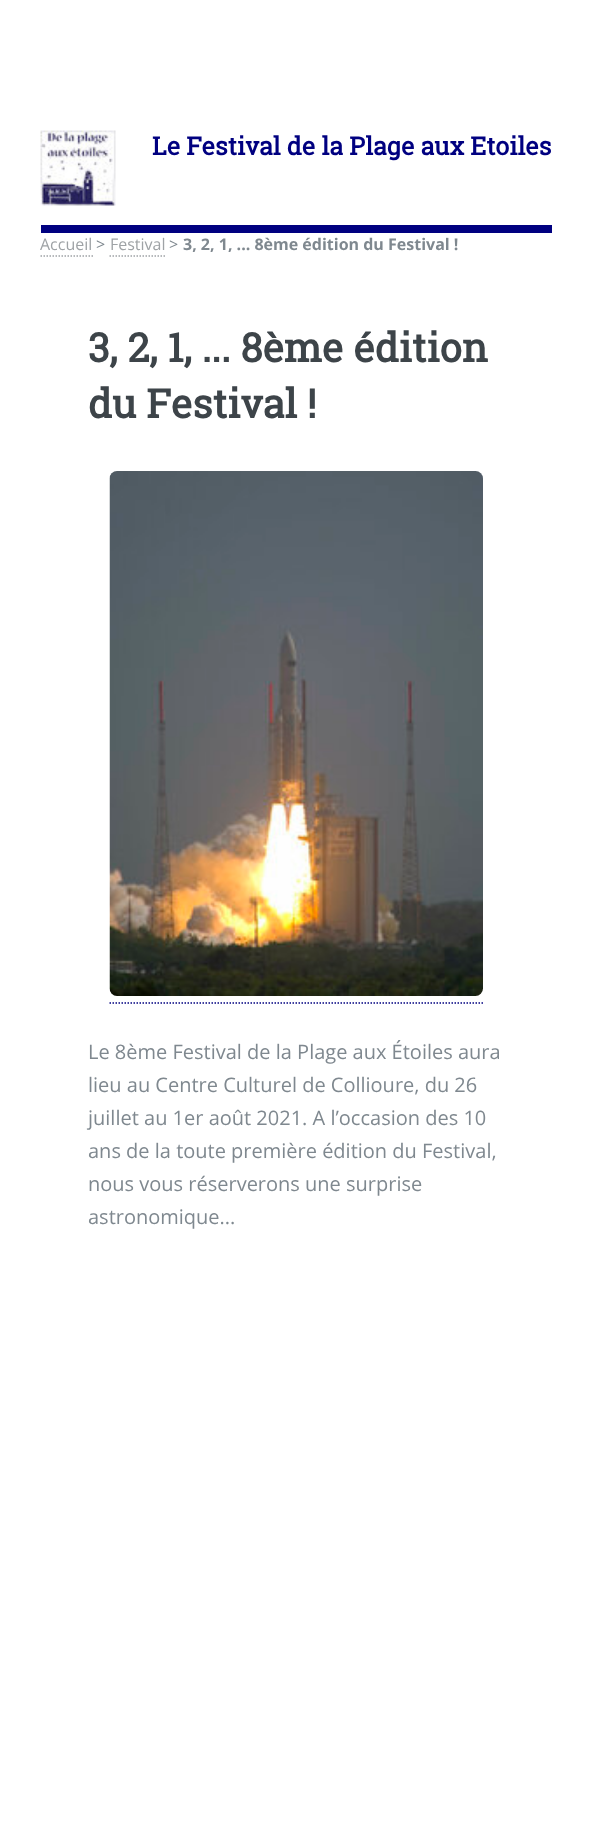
<!DOCTYPE html>
<meta charset="utf-8">
<style>body { margin: 0 } canvas { display: block }</style>
<canvas id="canvas" width="592" height="1839"></canvas>
<img id="img1" src="images/1.png" hidden>
<img id="img2" src="images/2.png" hidden>
<script>
window.onload = function () {
    const canvas = document.getElementById('canvas');
    const context = canvas.getContext('2d');
    context.miterLimit = 4;
    context.fontKerning = 'normal';

    context.fillStyle = 'rgb(255, 255, 255)';
    context.fillRect(0, 0, 592, 1839);
    context.fillStyle = 'rgb(0, 0, 128)';
    context.fillRect(41, 225, 511, 8);
    context.drawImage(document.getElementById('img1'), 40, 130, 76, 76);
    context.beginPath();
    context.moveTo(40.5, 256);
    context.lineTo(93, 256);
    context.strokeStyle = 'rgb(159, 163, 166)';
    context.lineWidth = 1.5;
    context.setLineDash([1.5, 1.5]);
    context.stroke();
    context.beginPath();
    context.moveTo(109.5, 256);
    context.lineTo(165, 256);
    context.stroke();
    context.drawImage(document.getElementById('img2'), 109, 471, 374, 525);
    context.beginPath();
    context.moveTo(109.5, 1003);
    context.lineTo(483, 1003);
    context.strokeStyle = 'rgb(0, 0, 128)';
    context.stroke();
    context.font = 'bold 25px Roboto Slab';
    context.fillText('Le Festival de la Plage aux Etoiles', 152, 155);
    context.font = '16px Open Sans';
    context.fillStyle = 'rgb(159, 163, 166)';
    context.fillText('Accueil', 40, 250);
    context.fillStyle = 'rgb(127, 136, 143)';
    context.fillText('>', 96, 250);
    context.fillStyle = 'rgb(159, 163, 166)';
    context.fillText('Festival', 110, 250);
    context.fillStyle = 'rgb(127, 136, 143)';
    context.fillText('>', 169, 250);
    context.font = 'bold 16px Open Sans';
    context.fillText('3, 2, 1, ... 8ème édition du Festival !', 183, 250);
    context.font = 'bold 40px Roboto Slab';
    context.fillStyle = 'rgb(61, 68, 73)';
    context.fillText('3, 2, 1, ... 8ème édition', 88, 362);
    context.fillText('du Festival !', 88, 418);
    context.font = '20px Open Sans';
    context.fillStyle = 'rgb(127, 136, 143)';
    context.fillText('Le 8ème Festival de la Plage aux Étoiles aura', 88, 1059);
    context.fillText('lieu au Centre Culturel de Collioure, du 26', 88, 1092);
    context.fillText('juillet au 1er août 2021. A l’occasion des 10', 88, 1125);
    context.fillText('ans de la toute première édition du Festival,', 88, 1158);
    context.fillText('nous vous réserverons une surprise', 88, 1191);
    context.fillText('astronomique...', 88, 1224);
};
</script>
